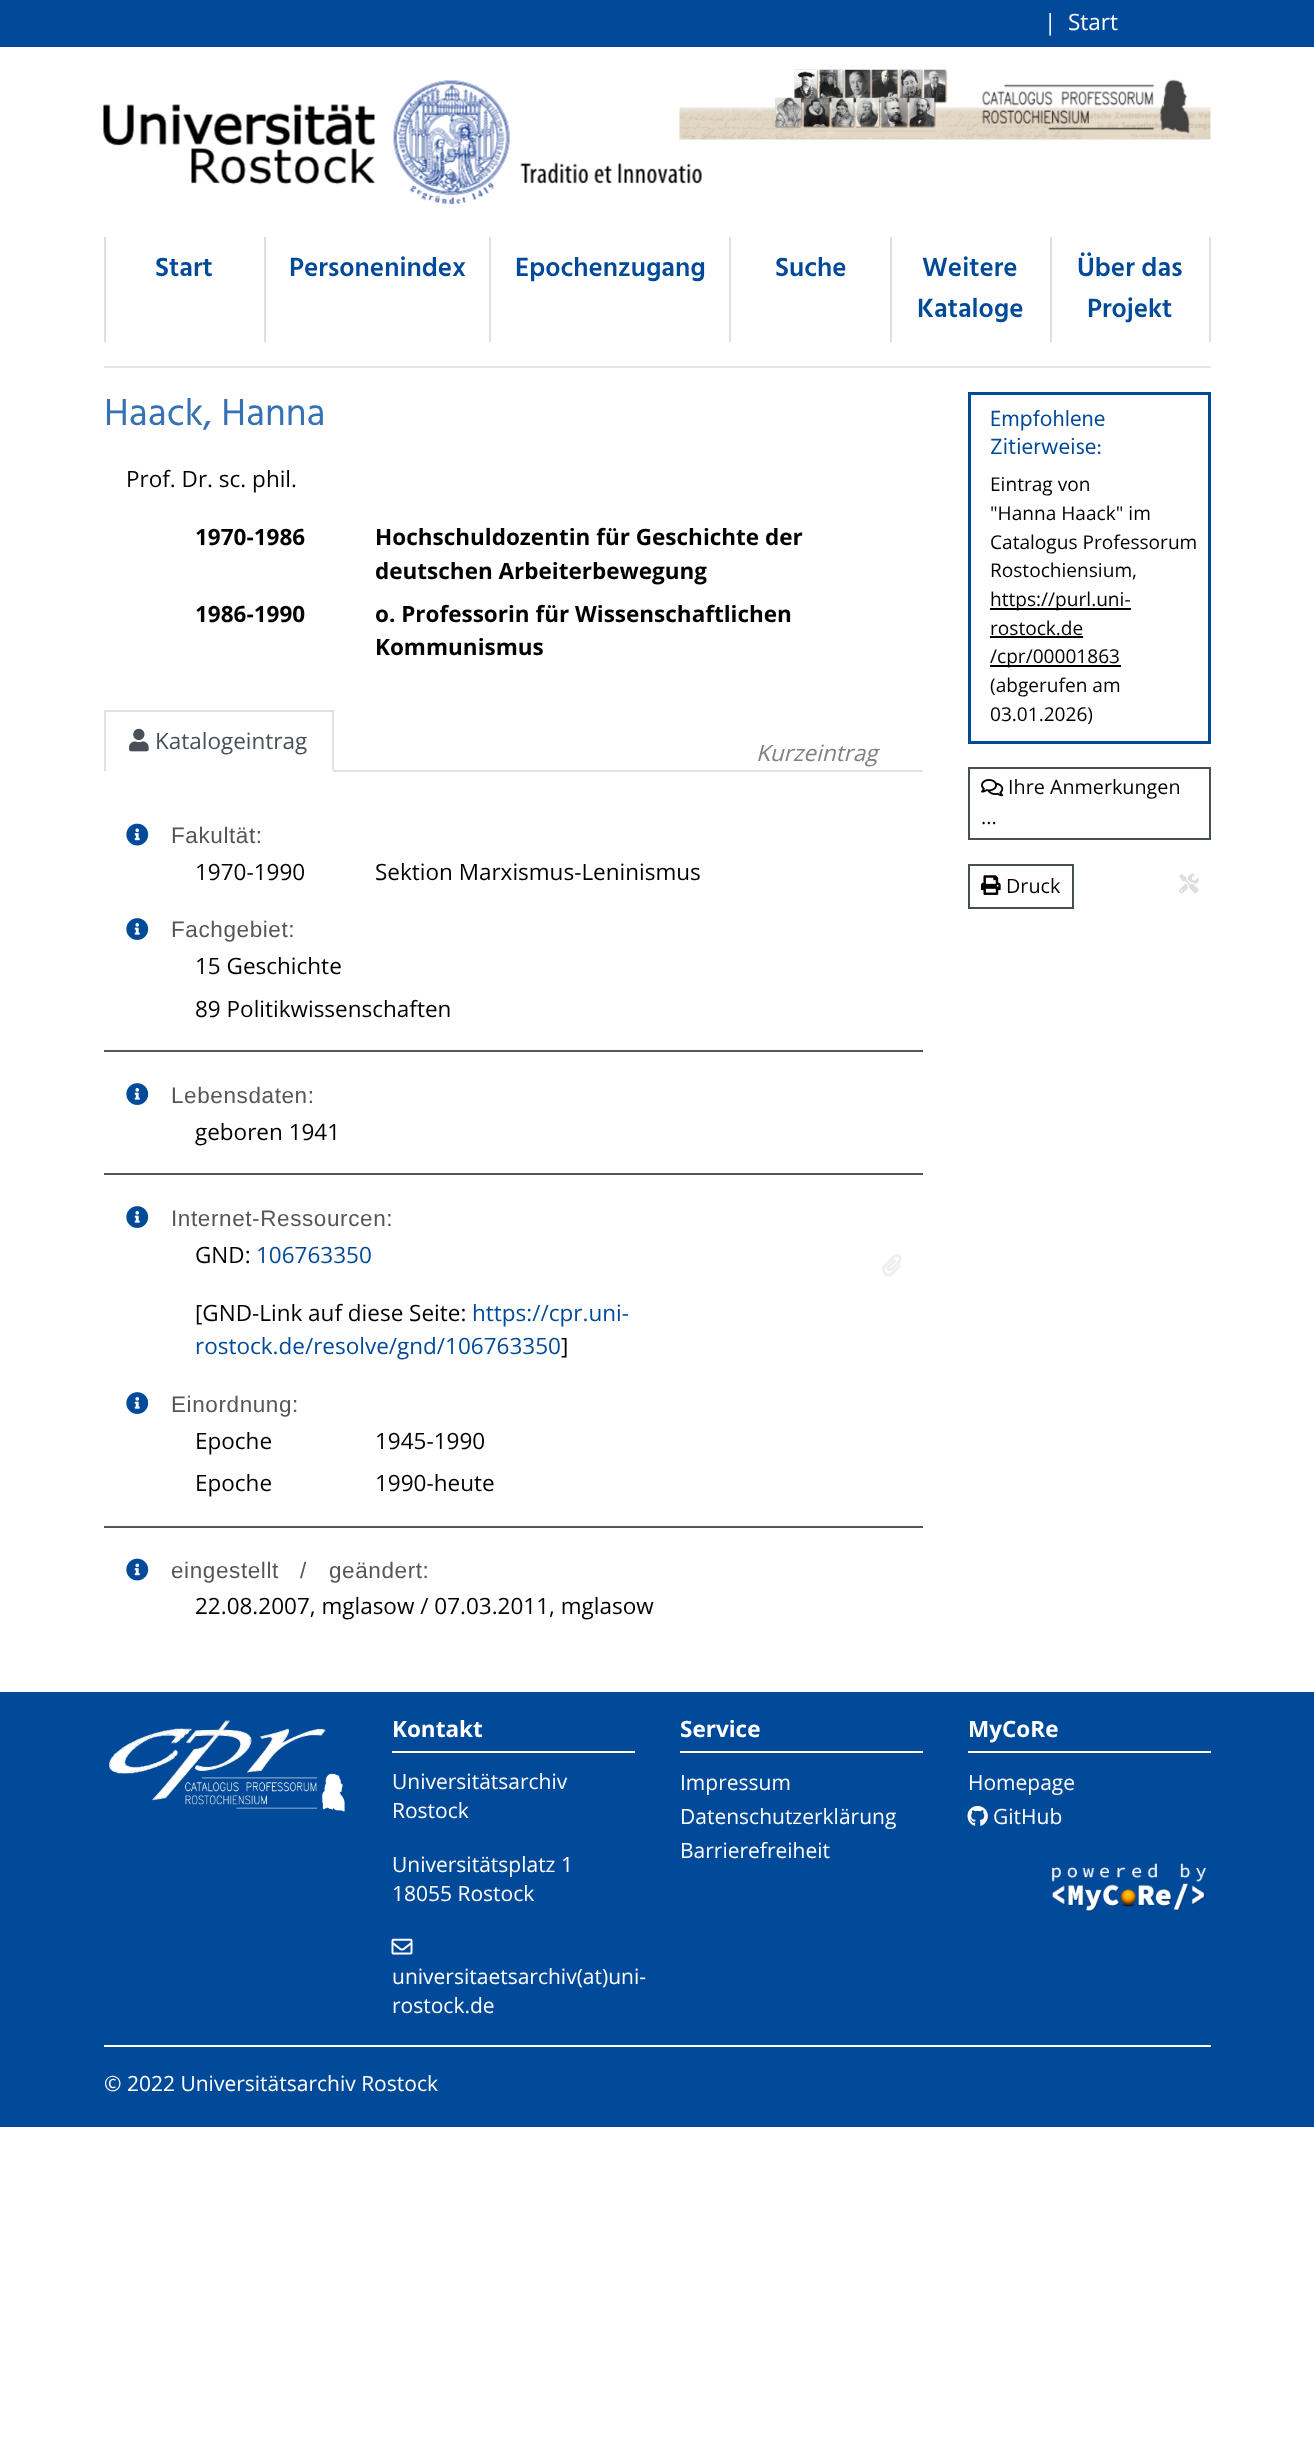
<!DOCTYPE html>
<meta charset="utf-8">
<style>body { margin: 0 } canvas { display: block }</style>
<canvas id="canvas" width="1314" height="2443"></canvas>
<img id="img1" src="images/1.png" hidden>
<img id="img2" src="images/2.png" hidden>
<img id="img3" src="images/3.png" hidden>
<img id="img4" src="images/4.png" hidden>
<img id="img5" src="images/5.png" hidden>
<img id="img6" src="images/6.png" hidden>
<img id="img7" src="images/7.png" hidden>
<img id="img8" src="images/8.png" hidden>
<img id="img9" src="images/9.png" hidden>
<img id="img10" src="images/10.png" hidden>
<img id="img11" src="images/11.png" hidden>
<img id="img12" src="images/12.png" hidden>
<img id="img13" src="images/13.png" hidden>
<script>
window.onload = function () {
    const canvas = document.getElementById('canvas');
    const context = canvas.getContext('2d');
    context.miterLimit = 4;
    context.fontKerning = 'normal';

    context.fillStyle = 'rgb(255, 255, 255)';
    context.fillRect(0, 0, 1314, 2443);
    context.fillStyle = 'rgb(0, 74, 153)';
    context.fillRect(0, 0, 1314, 47);
    context.drawImage(document.getElementById('img1'), 103, 80, 599, 125);
    context.drawImage(document.getElementById('img2'), 679, 69, 532, 71);
    context.fillStyle = 'rgb(223, 223, 223)';
    context.fillRect(104, 237, 2, 105);
    context.fillRect(264, 237, 2, 105);
    context.fillRect(489, 237, 2, 105);
    context.fillRect(729, 237, 2, 105);
    context.fillRect(890, 237, 2, 105);
    context.fillRect(1209, 237, 2, 105);
    context.fillRect(1050, 237, 2, 105);
    context.fillStyle = 'rgb(230, 230, 230)';
    context.fillRect(104, 366, 1107, 2);
    context.fillStyle = 'rgb(222, 226, 230)';
    context.fillRect(333, 770, 590, 2);
    context.fillRect(104, 710, 229, 2);
    context.fillRect(332, 710, 2, 61);
    context.fillStyle = 'rgb(255, 255, 255)';
    context.fillRect(332, 770, 1, 1);
    context.fillStyle = 'rgb(222, 226, 230)';
    context.fillRect(104, 710, 2, 61);
    context.drawImage(document.getElementById('img3'), 129, 728, 20, 24);
    context.drawImage(document.getElementById('img4'), 126, 823, 23, 23);
    context.drawImage(document.getElementById('img5'), 126, 918, 23, 22);
    context.fillStyle = 'rgb(86, 86, 86)';
    context.fillRect(104, 1050, 819, 2);
    context.drawImage(document.getElementById('img5'), 126, 1083, 23, 22);
    context.fillRect(104, 1173, 819, 2);
    context.drawImage(document.getElementById('img5'), 126, 1206, 23, 22);
    context.drawImage(document.getElementById('img6'), 882, 1254, 20, 23);
    context.drawImage(document.getElementById('img5'), 126, 1392, 23, 22);
    context.fillRect(104, 1526, 819, 2);
    context.drawImage(document.getElementById('img4'), 126, 1558, 23, 23);
    context.strokeStyle = 'rgb(0, 74, 153)';
    context.lineWidth = 3;
    context.strokeRect(969.5, 393.5, 240, 349);
    context.fillStyle = 'rgb(0, 0, 0)';
    context.fillRect(990, 608, 141, 2);
    context.fillRect(990, 636, 93, 2);
    context.fillRect(990, 665, 131, 2);
    context.strokeStyle = 'rgb(68, 80, 82)';
    context.lineWidth = 2;
    context.strokeRect(969, 768, 241, 71);
    context.drawImage(document.getElementById('img7'), 981, 779, 23, 18);
    context.strokeRect(969, 865, 104, 43);
    context.drawImage(document.getElementById('img8'), 981, 875, 20, 20);
    context.drawImage(document.getElementById('img9'), 1179, 873, 20, 21);
    context.fillStyle = 'rgb(0, 74, 153)';
    context.fillRect(0, 1692, 1314, 435);
    context.drawImage(document.getElementById('img10'), 109, 1720, 236, 92);
    context.fillStyle = 'rgb(255, 255, 255)';
    context.fillRect(392, 1751, 243, 2);
    context.drawImage(document.getElementById('img11'), 391, 1938, 22, 17);
    context.fillRect(680, 1751, 243, 2);
    context.fillRect(968, 1751, 243, 2);
    context.drawImage(document.getElementById('img12'), 967, 1806, 21, 20);
    context.drawImage(document.getElementById('img13'), 1052, 1863, 155, 49);
    context.fillRect(104, 2045, 1107, 2);
    context.font = '22.5px Open Sans';
    context.fillText('|', 1044, 30);
    context.fillText('Start', 1068, 30);
    context.font = '600 27px Hind';
    context.fillStyle = 'rgb(0, 74, 153)';
    context.fillText('Start', 155, 276);
    context.fillText('Personenindex', 289, 276);
    context.fillText('Epochenzugang', 515, 276);
    context.fillText('Suche', 775, 276);
    context.fillText('Weitere', 922, 276);
    context.fillText('Kataloge', 917, 317);
    context.fillText('Über das', 1077, 276);
    context.fillText('Projekt', 1087, 317);
    context.font = '38.5px Hind';
    context.fillStyle = 'rgb(54, 114, 179)';
    context.fillText('Haack, Hanna', 104, 425);
    context.font = '22.5px Open Sans';
    context.fillStyle = 'rgb(0, 0, 0)';
    context.fillText('Prof. Dr. sc. phil.', 126, 487);
    context.font = 'bold 22.5px Open Sans';
    context.fillText('1970-1986', 195, 545);
    context.fillText('Hochschuldozentin für Geschichte der', 375, 545);
    context.fillText('deutschen Arbeiterbewegung', 375, 579);
    context.fillText('1986-1990', 195, 622);
    context.fillText('o. Professorin für Wissenschaftlichen', 375, 622);
    context.fillText('Kommunismus', 375, 655);
    context.font = '22.5px Open Sans';
    context.fillStyle = 'rgb(73, 80, 87)';
    context.fillText('Katalogeintrag', 155, 749);
    context.font = 'italic 22.5px Open Sans';
    context.fillStyle = 'rgb(128, 128, 128)';
    context.fillText('Kurzeintrag', 756, 761);
    context.letterSpacing = '0.6px';
    context.font = '22.5px Liberation Sans';
    context.fillStyle = 'rgb(86, 86, 86)';
    context.fillText('Fakultät:', 171, 843);
    context.letterSpacing = '0px';
    context.font = '22.5px Open Sans';
    context.fillStyle = 'rgb(0, 0, 0)';
    context.fillText('1970-1990', 195, 880);
    context.fillText('Sektion Marxismus-Leninismus', 375, 880);
    context.letterSpacing = '0.6px';
    context.font = '22.5px Liberation Sans';
    context.fillStyle = 'rgb(86, 86, 86)';
    context.fillText('Fachgebiet:', 171, 937);
    context.letterSpacing = '0px';
    context.font = '22.5px Open Sans';
    context.fillStyle = 'rgb(0, 0, 0)';
    context.fillText('15 Geschichte', 195, 974);
    context.fillText('89 Politikwissenschaften', 195, 1017);
    context.letterSpacing = '0.6px';
    context.font = '22.5px Liberation Sans';
    context.fillStyle = 'rgb(86, 86, 86)';
    context.fillText('Lebensdaten:', 171, 1103);
    context.letterSpacing = '0px';
    context.font = '22.5px Open Sans';
    context.fillStyle = 'rgb(0, 0, 0)';
    context.fillText('geboren 1941', 195, 1140);
    context.letterSpacing = '0.6px';
    context.font = '22.5px Liberation Sans';
    context.fillStyle = 'rgb(86, 86, 86)';
    context.fillText('Internet-Ressourcen:', 171, 1226);
    context.letterSpacing = '0px';
    context.font = '22.5px Open Sans';
    context.fillStyle = 'rgb(0, 0, 0)';
    context.fillText('GND:', 195, 1263);
    context.fillStyle = 'rgb(0, 74, 153)';
    context.fillText('106763350', 256, 1263);
    context.fillStyle = 'rgb(0, 0, 0)';
    context.fillText('[GND-Link auf diese Seite:', 195, 1321);
    context.fillStyle = 'rgb(0, 74, 153)';
    context.fillText('https://cpr.uni-', 472, 1321);
    context.fillText('rostock.de/resolve/gnd/106763350', 195, 1354);
    context.fillStyle = 'rgb(0, 0, 0)';
    context.fillText(']', 561, 1354);
    context.letterSpacing = '0.6px';
    context.font = '22.5px Liberation Sans';
    context.fillStyle = 'rgb(86, 86, 86)';
    context.fillText('Einordnung:', 171, 1412);
    context.letterSpacing = '0px';
    context.font = '22.5px Open Sans';
    context.fillStyle = 'rgb(0, 0, 0)';
    context.fillText('Epoche', 195, 1449);
    context.fillText('1945-1990', 375, 1449);
    context.fillText('Epoche', 195, 1491);
    context.fillText('1990-heute', 375, 1491);
    context.letterSpacing = '0.6px';
    context.font = '22.5px Liberation Sans';
    context.fillStyle = 'rgb(86, 86, 86)';
    context.fillText('eingestellt', 171, 1578);
    context.fillText('/', 300, 1578);
    context.fillText('geändert:', 329, 1578);
    context.letterSpacing = '0px';
    context.font = '22.5px Open Sans';
    context.fillStyle = 'rgb(0, 0, 0)';
    context.fillText('22.08.2007, mglasow / 07.03.2011, mglasow', 195, 1614);
    context.font = '22.5px Hind';
    context.fillStyle = 'rgb(0, 74, 153)';
    context.fillText('Empfohlene', 990, 426);
    context.fillText('Zitierweise:', 990, 454);
    context.font = '19.1px Open Sans';
    context.fillStyle = 'rgb(0, 0, 0)';
    context.fillText('Eintrag von', 990, 491);
    context.fillText('"Hanna Haack" im', 990, 520);
    context.fillText('Catalogus Professorum', 990, 549);
    context.fillText('Rostochiensium,', 990, 577);
    context.fillText('https://purl.uni-', 990, 606);
    context.fillText('rostock.de', 990, 635);
    context.fillText('/cpr/00001863', 990, 663);
    context.fillText('(abgerufen am', 990, 692);
    context.fillText('03.01.2026)', 990, 721);
    context.font = '19.75px Open Sans';
    context.fillText('Ihre Anmerkungen', 1008, 794);
    context.fillText('...', 981, 824);
    context.fillText('Druck', 1006, 893);
    context.font = 'bold 22.5px Open Sans';
    context.fillStyle = 'rgb(255, 255, 255)';
    context.fillText('Kontakt', 392, 1737);
    context.font = '21px Open Sans';
    context.fillText('Universitätsarchiv', 392, 1789);
    context.fillText('Rostock', 392, 1818);
    context.fillText('Universitätsplatz 1', 392, 1872);
    context.fillText('18055 Rostock', 392, 1901);
    context.fillText('universitaetsarchiv(at)uni-', 392, 1984);
    context.fillText('rostock.de', 392, 2013);
    context.font = 'bold 22.5px Open Sans';
    context.fillText('Service', 680, 1737);
    context.font = '21px Open Sans';
    context.fillText('Impressum', 680, 1790);
    context.fillText('Datenschutzerklärung', 680, 1824);
    context.fillText('Barrierefreiheit', 680, 1858);
    context.font = 'bold 22.5px Open Sans';
    context.fillText('MyCoRe', 968, 1737);
    context.font = '21px Open Sans';
    context.fillText('Homepage', 968, 1790);
    context.fillText('GitHub', 993, 1824);
    context.fillText('© 2022 Universitätsarchiv Rostock', 104, 2091);
};
</script>
